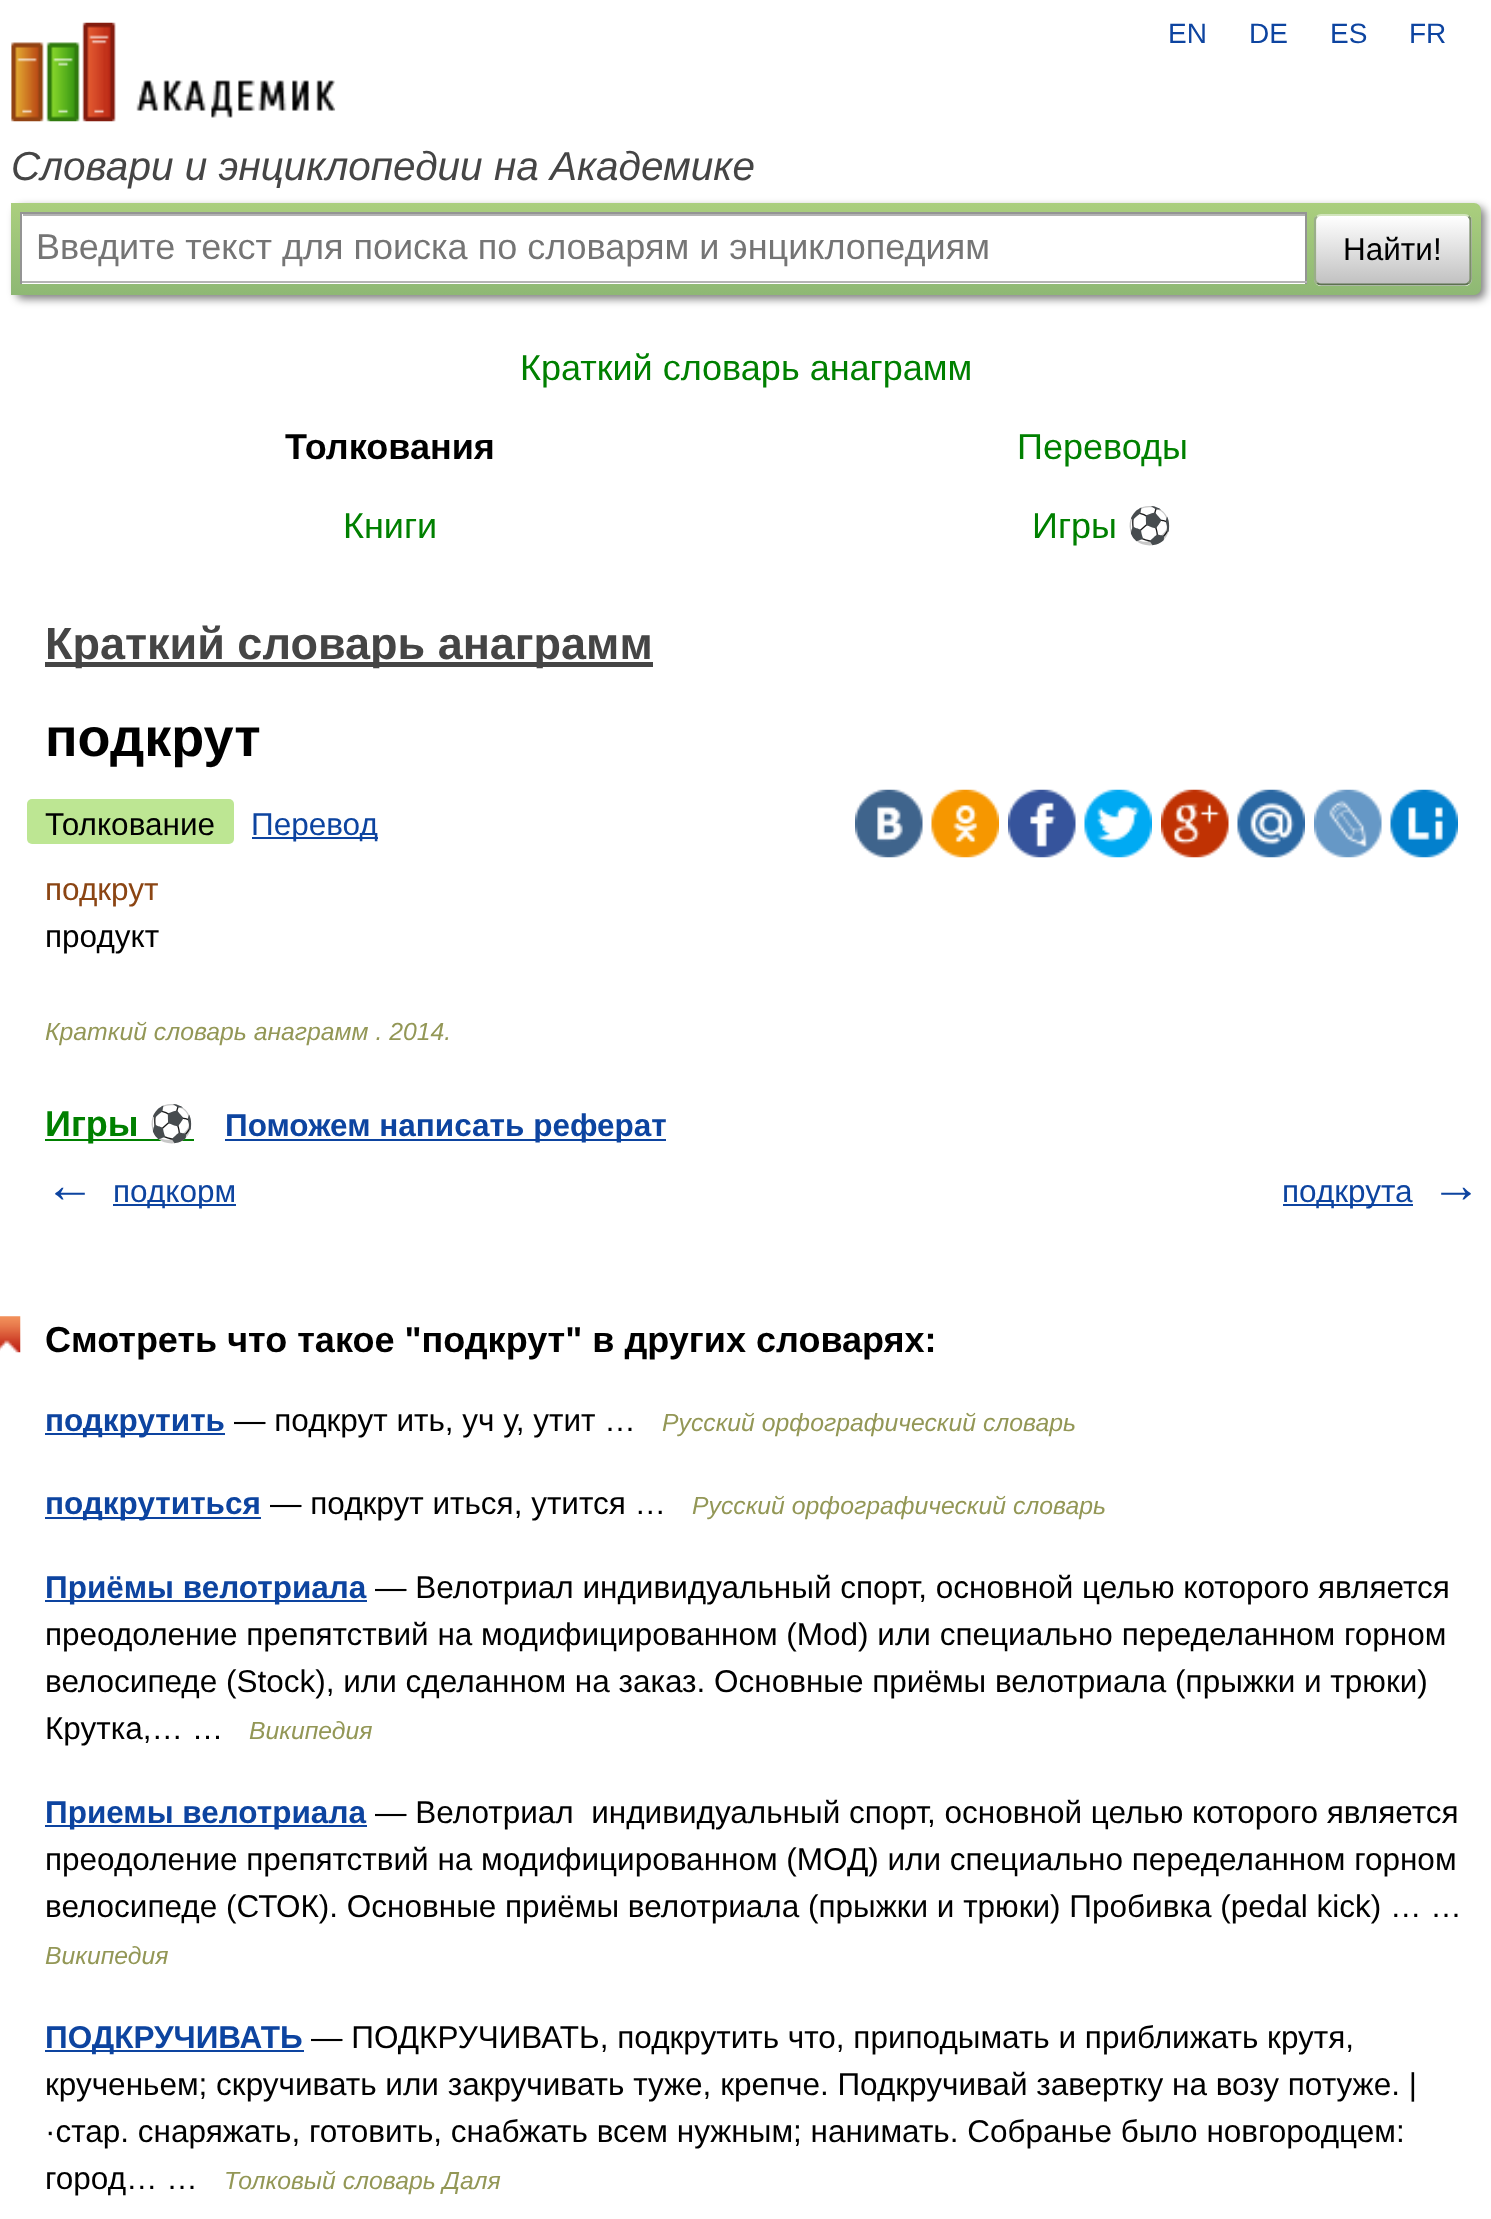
<!DOCTYPE html>
<meta charset="utf-8">
<style>body { margin: 0 } canvas { display: block }</style>
<canvas id="canvas" width="1491" height="2219"></canvas>
<img id="img1" src="images/1.png" hidden>
<img id="img2" src="images/2.png" hidden>
<img id="img3" src="images/3.png" hidden>
<img id="img4" src="images/4.png" hidden>
<img id="img5" src="images/5.png" hidden>
<img id="img6" src="images/6.png" hidden>
<img id="img7" src="images/7.png" hidden>
<img id="img8" src="images/8.png" hidden>
<img id="img9" src="images/9.png" hidden>
<img id="img10" src="images/10.png" hidden>
<script>
window.onload = function () {
    const canvas = document.getElementById('canvas');
    const context = canvas.getContext('2d');
    context.miterLimit = 4;
    context.fontKerning = 'normal';
    let gradient;

    context.fillStyle = 'rgb(255, 255, 255)';
    context.fillRect(0, 0, 1491, 2219);
    context.drawImage(document.getElementById('img1'), 11, 22, 325, 100);
    context.fillStyle = 'rgba(0, 0, 0, 0.5)';
    context.filter = 'blur(4.5px)';
    context.beginPath();
    context.roundRect(16, 207, 1469, 92, 7);
    context.fill();
    context.filter = 'none';
    gradient = context.createLinearGradient(746, 202, 746, 295);
    gradient.addColorStop(0, 'rgb(171, 207, 126)');
    gradient.addColorStop(1, 'rgb(142, 184, 116)');
    context.fillStyle = gradient;
    context.beginPath();
    context.roundRect(11, 203, 1470, 92, [0, 7, 7, 0]);
    context.fill();
    context.fillStyle = 'rgb(255, 255, 255)';
    context.fillRect(22, 214, 1283, 70);
    context.fillStyle = 'rgb(179, 179, 179)';
    context.fillRect(23, 214, 1282, 2);
    context.fillStyle = 'rgb(148, 148, 148)';
    context.fillRect(20, 212, 1287, 2);
    context.fillRect(1305, 212, 2, 72);
    context.fillStyle = 'rgb(180, 180, 180)';
    context.fillRect(20, 281, 1287, 2);
    context.fillStyle = 'rgb(148, 148, 148)';
    context.fillRect(20, 212, 2, 72);
    context.save();
    context.beginPath();
    context.roundRect(1314, 214, 158, 72, 7);
    context.clip();
    gradient = context.createLinearGradient(1393, 216, 1393, 284);
    gradient.addColorStop(0, 'rgb(255, 255, 255)');
    gradient.addColorStop(1, 'rgb(193, 193, 193)');
    context.fillStyle = gradient;
    context.fillRect(1314, 216, 158, 68);
    gradient = context.createLinearGradient(1393, 284, 1393, 351);
    gradient.addColorStop(0, 'rgb(255, 255, 255)');
    gradient.addColorStop(1, 'rgb(193, 193, 193)');
    context.fillStyle = gradient;
    context.fillRect(1314, 284, 158, 2);
    context.restore();
    context.beginPath();
    context.moveTo(1317, 216.5);
    context.bezierCurveTo(1318, 215.5, 1319.5, 215, 1321, 215);
    context.lineTo(1465, 215);
    context.bezierCurveTo(1466, 215, 1467.5, 215.5, 1468.5, 216.5);
    context.strokeStyle = 'rgb(209, 228, 188)';
    context.lineWidth = 2.2;
    context.stroke();
    context.beginPath();
    context.moveTo(1468.5, 216.5);
    context.bezierCurveTo(1470, 217.5, 1470.5, 219, 1470.5, 220.5);
    context.lineTo(1470.5, 279);
    context.bezierCurveTo(1470.5, 280.5, 1470, 282, 1468.5, 283);
    context.strokeStyle = 'rgb(122, 142, 105)';
    context.stroke();
    context.beginPath();
    context.moveTo(1468.5, 283);
    context.bezierCurveTo(1467.5, 284, 1466, 284.5, 1465, 284.5);
    context.lineTo(1321, 284.5);
    context.bezierCurveTo(1319.5, 284.5, 1318, 284, 1317, 283);
    context.strokeStyle = 'rgb(93, 114, 80)';
    context.stroke();
    context.beginPath();
    context.moveTo(1317, 283);
    context.bezierCurveTo(1315.5, 282, 1315, 280.5, 1315, 279);
    context.lineTo(1315, 220.5);
    context.bezierCurveTo(1315, 219, 1315.5, 217.5, 1317, 216.5);
    context.strokeStyle = 'rgb(154, 174, 137)';
    context.stroke();
    context.fillStyle = 'rgb(69, 69, 69)';
    context.fillRect(45, 662, 608, 5);
    context.fillStyle = 'rgb(189, 230, 147)';
    context.beginPath();
    context.roundRect(27, 799, 207, 45, 5);
    context.fill();
    context.fillStyle = 'rgb(13, 68, 160)';
    context.fillRect(252, 837, 126, 2);
    context.drawImage(document.getElementById('img2'), 855, 789, 68, 69);
    context.drawImage(document.getElementById('img3'), 931, 789, 68, 69);
    context.drawImage(document.getElementById('img4'), 1008, 789, 68, 69);
    context.drawImage(document.getElementById('img5'), 1084, 789, 68, 69);
    context.drawImage(document.getElementById('img6'), 1161, 789, 68, 69);
    context.drawImage(document.getElementById('img7'), 1237, 789, 68, 69);
    context.drawImage(document.getElementById('img8'), 1314, 789, 68, 69);
    context.drawImage(document.getElementById('img9'), 1390, 789, 68, 69);
    context.fillStyle = 'rgb(0, 128, 0)';
    context.fillRect(45, 1139, 149, 2);
    context.fillStyle = 'rgb(13, 68, 160)';
    context.fillRect(225, 1139, 441, 2);
    context.fillRect(113, 1204, 123, 2);
    context.fillRect(1283, 1204, 130, 2);
    context.drawImage(document.getElementById('img10'), 0, 1316, 21, 37);
    context.fillRect(45, 1433, 180, 2);
    context.fillRect(45, 1517, 216, 2);
    context.fillRect(45, 1600, 322, 2);
    context.fillRect(45, 1825, 322, 2);
    context.fillRect(45, 2050, 259, 2);
    context.font = '28px Liberation Sans';
    context.fillText('EN', 1168, 43);
    context.fillText('DE', 1249, 43);
    context.fillText('ES', 1330, 43);
    context.fillText('FR', 1409, 43);
    context.font = 'italic 40.5px Liberation Sans';
    context.fillStyle = 'rgb(69, 69, 69)';
    context.fillText('Словари и энциклопедии на Академике', 11, 180);
    context.font = '36px Liberation Sans';
    context.fillStyle = 'rgb(117, 117, 117)';
    context.fillText('Введите текст для поиска по словарям и энциклопедиям', 36, 259);
    context.font = '31.5px Liberation Sans';
    context.fillStyle = 'rgb(0, 0, 0)';
    context.fillText('Найти!', 1343, 260);
    context.font = '36px Liberation Sans';
    context.fillStyle = 'rgb(0, 128, 0)';
    context.fillText('Краткий словарь анаграмм', 520, 380);
    context.font = 'bold 36px Liberation Sans';
    context.fillStyle = 'rgb(0, 0, 0)';
    context.fillText('Толкования', 285, 459);
    context.font = '36px Liberation Sans';
    context.fillStyle = 'rgb(0, 128, 0)';
    context.fillText('Переводы', 1017, 459);
    context.fillText('Книги', 343, 538);
    context.fillText('Игры', 1032, 538);
    context.font = '36px Noto Color Emoji';
    context.fillText('⚽', 1127, 538);
    context.font = 'bold 45px Liberation Sans';
    context.fillStyle = 'rgb(69, 69, 69)';
    context.fillText('Краткий словарь анаграмм', 45, 659);
    context.font = 'bold 54px Liberation Sans';
    context.fillStyle = 'rgb(0, 0, 0)';
    context.fillText('подкрут', 45, 756);
    context.font = '31.5px Liberation Sans';
    context.fillText('Толкование', 45, 835);
    context.fillStyle = 'rgb(13, 68, 160)';
    context.fillText('Перевод', 251, 835);
    context.fillStyle = 'rgb(139, 69, 19)';
    context.fillText('подкрут', 45, 900);
    context.fillStyle = 'rgb(0, 0, 0)';
    context.fillText('продукт', 45, 947);
    context.font = 'italic 24.75px Liberation Sans';
    context.fillStyle = 'rgb(147, 151, 86)';
    context.fillText('Краткий словарь анаграмм . 2014.', 45, 1040);
    context.font = 'bold 36px Liberation Sans';
    context.fillStyle = 'rgb(0, 128, 0)';
    context.fillText('Игры', 45, 1136);
    context.font = 'bold 36px Noto Color Emoji';
    context.fillText('⚽', 149, 1136);
    context.font = 'bold 31.5px Liberation Sans';
    context.fillStyle = 'rgb(13, 68, 160)';
    context.fillText('Поможем написать реферат', 225, 1136);
    context.font = 'bold 50px Liberation Sans';
    context.fillText('←', 45, 1202);
    context.font = '31.5px Liberation Sans';
    context.fillText('подкорм', 113, 1202);
    context.fillText('подкрута', 1282, 1202);
    context.font = 'bold 50px Liberation Sans';
    context.fillText('→', 1431, 1202);
    context.font = 'bold 36px Liberation Sans';
    context.fillStyle = 'rgb(0, 0, 0)';
    context.fillText('Смотреть что такое "подкрут" в других словарях:', 45, 1352);
    context.font = 'bold 31.5px Liberation Sans';
    context.fillStyle = 'rgb(13, 68, 160)';
    context.fillText('подкрутить', 45, 1431);
    context.font = '31.5px Liberation Sans';
    context.fillStyle = 'rgb(0, 0, 0)';
    context.fillText('— подкрут ить, уч у, утит …', 234, 1431);
    context.font = 'italic 24.75px Liberation Sans';
    context.fillStyle = 'rgb(147, 151, 86)';
    context.fillText('Русский орфографический словарь', 662, 1431);
    context.font = 'bold 31.5px Liberation Sans';
    context.fillStyle = 'rgb(13, 68, 160)';
    context.fillText('подкрутиться', 45, 1514);
    context.font = '31.5px Liberation Sans';
    context.fillStyle = 'rgb(0, 0, 0)';
    context.fillText('— подкрут иться, утится …', 270, 1514);
    context.font = 'italic 24.75px Liberation Sans';
    context.fillStyle = 'rgb(147, 151, 86)';
    context.fillText('Русский орфографический словарь', 692, 1514);
    context.font = 'bold 31.5px Liberation Sans';
    context.fillStyle = 'rgb(13, 68, 160)';
    context.fillText('Приёмы велотриала', 45, 1598);
    context.font = '31.5px Liberation Sans';
    context.fillStyle = 'rgb(0, 0, 0)';
    context.fillText('— Велотриал индивидуальный спорт, основной целью которого является', 375, 1598);
    context.fillText('преодоление препятствий на модифицированном (Mod) или специально переделанном горном', 45, 1645);
    context.fillText('велосипеде (Stock), или сделанном на заказ. Основные приёмы велотриала (прыжки и трюки)', 45, 1692);
    context.fillText('Крутка,… …', 45, 1739);
    context.font = 'italic 24.75px Liberation Sans';
    context.fillStyle = 'rgb(147, 151, 86)';
    context.fillText('Википедия', 249, 1739);
    context.font = 'bold 31.5px Liberation Sans';
    context.fillStyle = 'rgb(13, 68, 160)';
    context.fillText('Приемы велотриала', 45, 1823);
    context.font = '31.5px Liberation Sans';
    context.fillStyle = 'rgb(0, 0, 0)';
    context.fillText('— Велотриал  индивидуальный спорт, основной целью которого является', 375, 1823);
    context.fillText('преодоление препятствий на модифицированном (МОД) или специально переделанном горном', 45, 1870);
    context.fillText('велосипеде (СТОК). Основные приёмы велотриала (прыжки и трюки) Пробивка (pedal kick) … …', 45, 1917);
    context.font = 'italic 24.75px Liberation Sans';
    context.fillStyle = 'rgb(147, 151, 86)';
    context.fillText('Википедия', 45, 1964);
    context.font = 'bold 31.5px Liberation Sans';
    context.fillStyle = 'rgb(13, 68, 160)';
    context.fillText('ПОДКРУЧИВАТЬ', 45, 2048);
    context.font = '31.5px Liberation Sans';
    context.fillStyle = 'rgb(0, 0, 0)';
    context.fillText('— ПОДКРУЧИВАТЬ, подкрутить что, приподымать и приближать крутя,', 311, 2048);
    context.fillText('крученьем; скручивать или закручивать туже, крепче. Подкручивай завертку на возу потуже. |', 45, 2095);
    context.fillText('·стар. снаряжать, готовить, снабжать всем нужным; нанимать. Собранье было новгородцем:', 45, 2142);
    context.fillText('город… …', 45, 2189);
    context.font = 'italic 24.75px Liberation Sans';
    context.fillStyle = 'rgb(147, 151, 86)';
    context.fillText('Толковый словарь Даля', 224, 2189);
};
</script>
